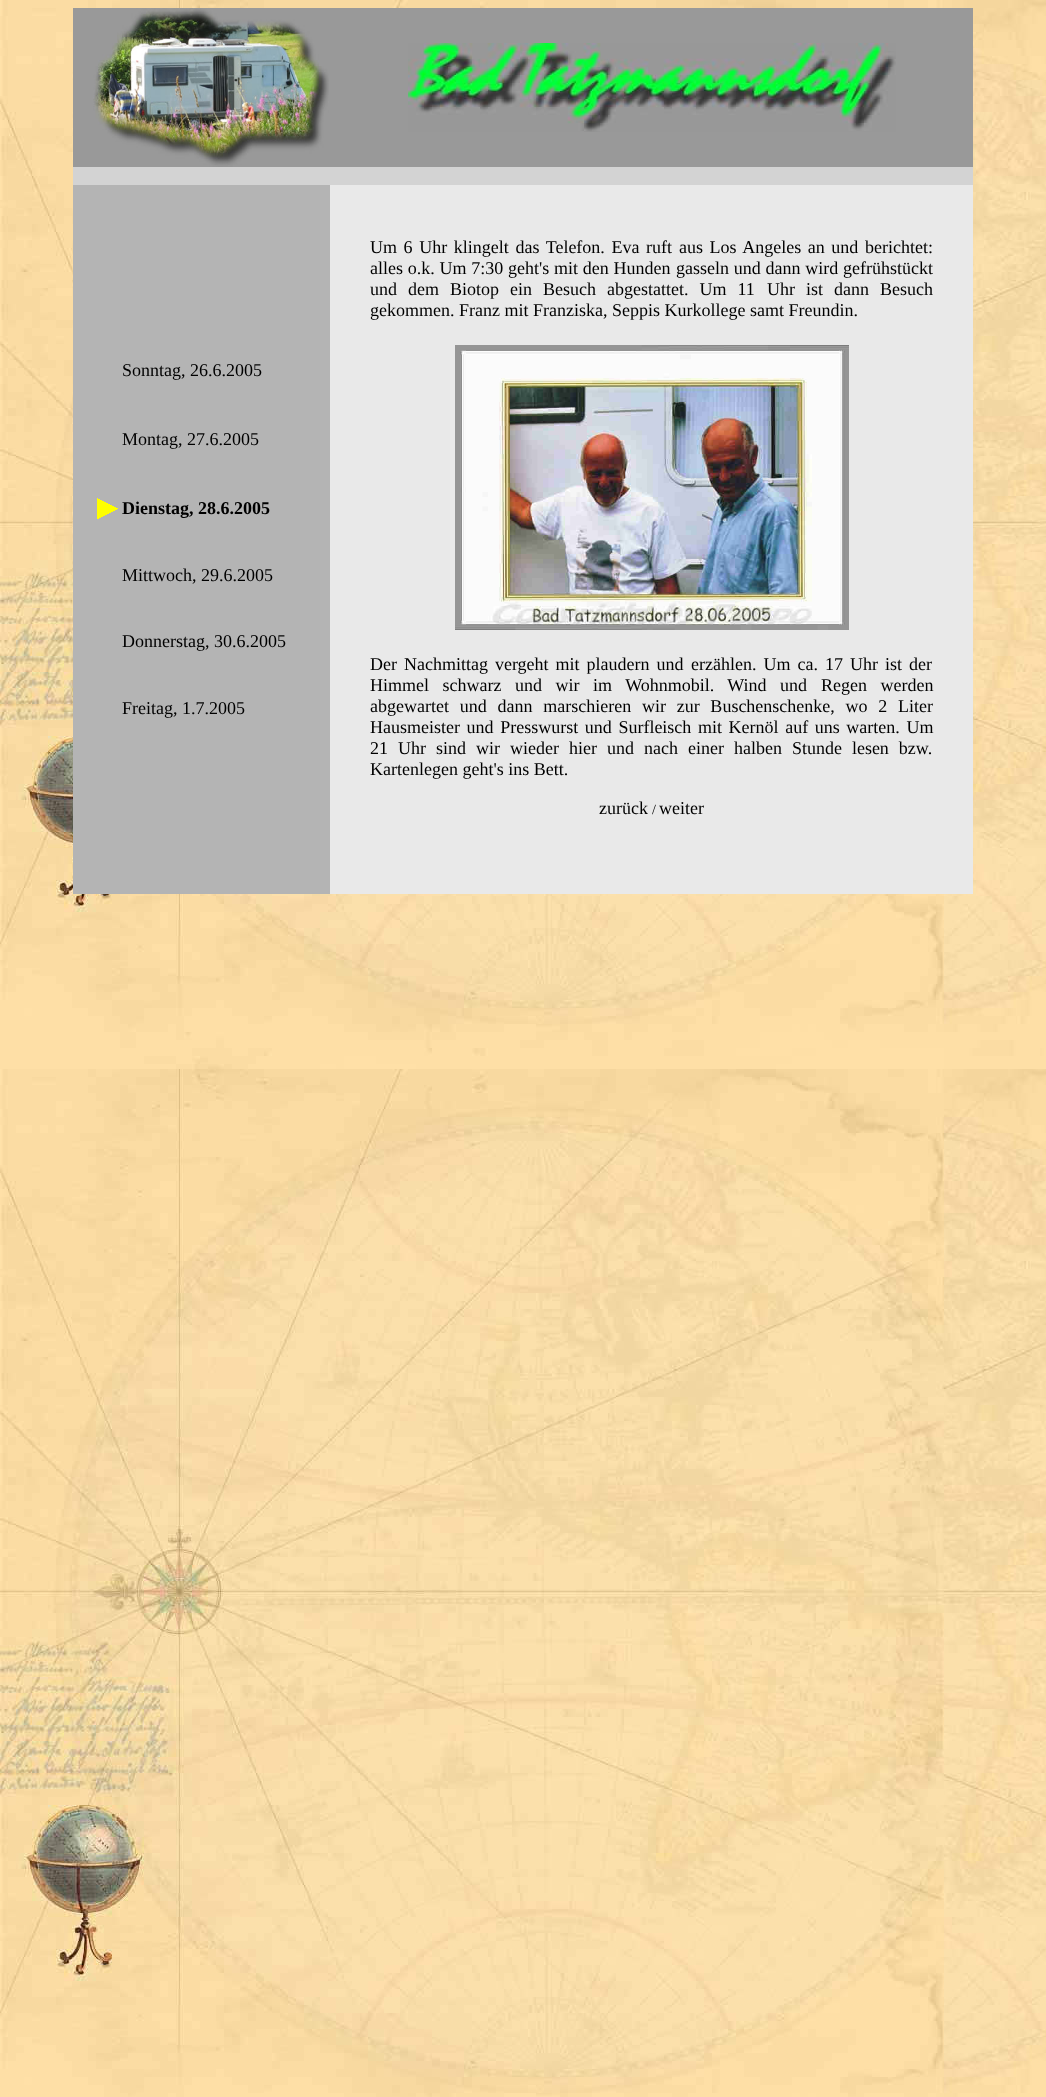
<!DOCTYPE html>
<meta charset="utf-8">
<style>body { margin: 0 } canvas { display: block }</style>
<canvas id="canvas" width="1046" height="2097"></canvas>
<img id="img1" src="images/1.png" hidden>
<img id="img2" src="images/2.png" hidden>
<img id="img3" src="images/3.png" hidden>
<img id="img4" src="images/4.png" hidden>
<img id="img5" src="images/5.png" hidden>
<script>
window.onload = function () {
    const canvas = document.getElementById('canvas');
    const context = canvas.getContext('2d');
    context.miterLimit = 4;
    context.fontKerning = 'normal';

    context.fillStyle = 'rgb(255, 255, 255)';
    context.fillRect(0, 0, 1046, 2097);
    context.drawImage(document.getElementById('img1'), 0, 0, 1046, 2097);
    context.fillStyle = 'rgb(153, 153, 153)';
    context.fillRect(73, 8, 20, 159);
    context.fillRect(329, 8, 644, 159);
    context.drawImage(document.getElementById('img2'), 93, 8, 236, 159);
    context.drawImage(document.getElementById('img3'), 408, 43, 488, 89);
    context.fillStyle = 'rgb(211, 211, 211)';
    context.fillRect(73, 167, 900, 18);
    context.fillStyle = 'rgb(180, 180, 180)';
    context.fillRect(73, 185, 257, 709);
    context.drawImage(document.getElementById('img4'), 97, 498, 21, 21);
    context.fillStyle = 'rgb(233, 233, 233)';
    context.fillRect(330, 185, 643, 709);
    context.drawImage(document.getElementById('img5'), 455, 345, 394, 285);
    context.font = '18px Liberation Serif';
    context.fillStyle = 'rgb(0, 0, 0)';
    context.fillText('Sonntag, 26.6.2005', 122, 376);
    context.fillText('Montag, 27.6.2005', 122, 445);
    context.font = 'bold 18px Liberation Serif';
    context.fillText('Dienstag, 28.6.2005', 122, 514);
    context.font = '18px Liberation Serif';
    context.fillText('Mittwoch, 29.6.2005', 122, 581);
    context.fillText('Donnerstag, 30.6.2005', 122, 647);
    context.fillText('Freitag, 1.7.2005', 122, 714);
    context.wordSpacing = '2.1px';
    context.fillText('Um 6 Uhr klingelt das Telefon. Eva ruft', 370, 253);
    context.fillText('aus Los Angeles an und berichtet:', 679, 253);
    context.wordSpacing = '0.25px';
    context.fillText('alles o.k. Um 7:30 geht\'s mit den Hunden', 370, 274);
    context.fillText('gasseln und dann wird gefrühstückt', 676, 274);
    context.wordSpacing = '6.5px';
    context.fillText('und dem Biotop ein Besuch abgestattet. Um 11', 370, 295);
    context.fillText('Uhr ist dann Besuch', 767, 295);
    context.wordSpacing = '0px';
    context.fillText('gekommen. Franz mit Franziska, Seppis Kurkollege samt Freundin.', 370, 316);
    context.wordSpacing = '2.5px';
    context.fillText('Der Nachmittag vergeht mit plaudern und', 370, 670);
    context.fillText('erzählen. Um ca. 17 Uhr ist der', 691, 670);
    context.wordSpacing = '9px';
    context.fillText('Himmel schwarz und wir im Wohnmobil. Wind und', 370, 691);
    context.fillText('Regen werden', 821, 691);
    context.wordSpacing = '6.25px';
    context.fillText('abgewartet und dann marschieren wir zur Buschenschenke, wo 2 Liter', 370, 712);
    context.wordSpacing = '2.1px';
    context.fillText('Hausmeister und Presswurst und Surfleisch mit Kernöl auf uns warten. Um', 370, 733);
    context.wordSpacing = '5.5px';
    context.fillText('21 Uhr', 370, 754);
    context.fillText('sind wir wieder hier und nach einer halben Stunde lesen bzw.', 436, 754);
    context.wordSpacing = '0px';
    context.fillText('Kartenlegen geht\'s ins Bett.', 370, 775);
    context.fillText('zurück', 599, 814);
    context.font = '14px Liberation Serif';
    context.fillText('/', 652, 814);
    context.font = '18px Liberation Serif';
    context.fillText('weiter', 659, 814);
};
</script>
